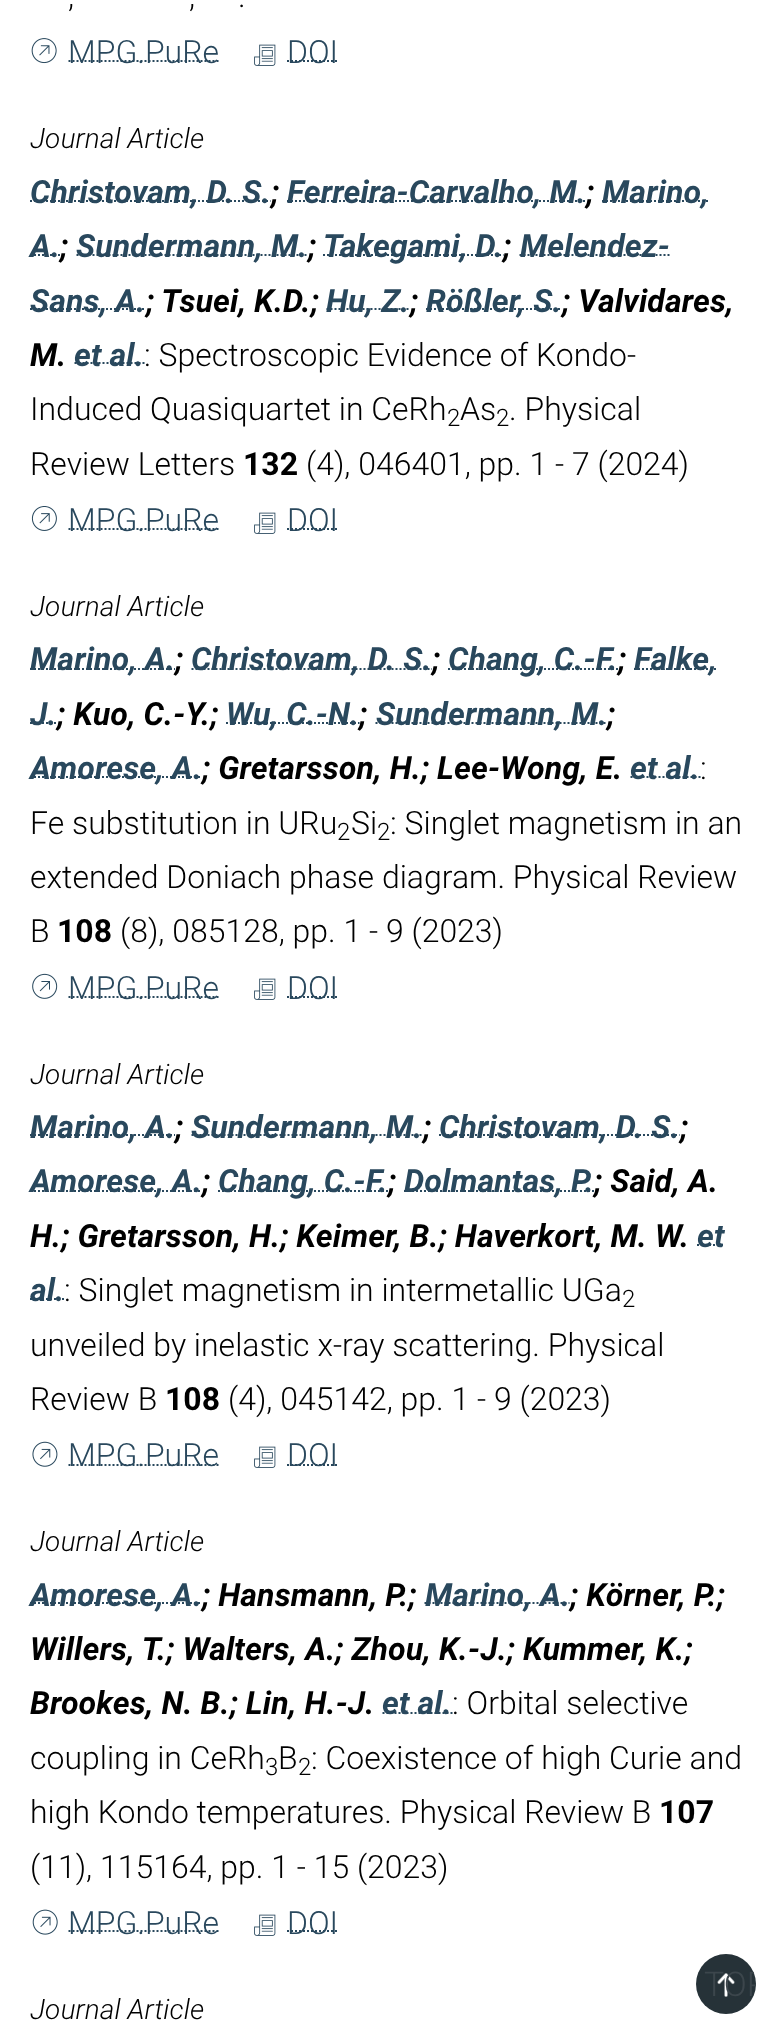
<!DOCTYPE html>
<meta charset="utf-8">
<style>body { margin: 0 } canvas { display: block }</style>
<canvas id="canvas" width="776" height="2034"></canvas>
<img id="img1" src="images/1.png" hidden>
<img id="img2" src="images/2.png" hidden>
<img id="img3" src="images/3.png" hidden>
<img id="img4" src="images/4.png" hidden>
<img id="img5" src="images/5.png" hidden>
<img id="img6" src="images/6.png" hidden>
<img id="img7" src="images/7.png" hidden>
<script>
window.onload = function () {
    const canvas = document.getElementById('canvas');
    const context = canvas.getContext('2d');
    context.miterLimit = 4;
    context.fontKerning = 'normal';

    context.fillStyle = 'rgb(255, 255, 255)';
    context.fillRect(0, 0, 776, 2034);
    context.drawImage(document.getElementById('img1'), 31, 38, 26, 26);
    context.beginPath();
    context.moveTo(68.5, 61);
    context.lineTo(219.5, 61);
    context.strokeStyle = 'rgb(41, 72, 93)';
    context.lineWidth = 2;
    context.setLineDash([2, 2]);
    context.stroke();
    context.drawImage(document.getElementById('img2'), 254, 44, 22, 22);
    context.beginPath();
    context.moveTo(287, 61);
    context.lineTo(338, 61);
    context.stroke();
    context.beginPath();
    context.moveTo(30, 201);
    context.lineTo(270.5, 201);
    context.stroke();
    context.beginPath();
    context.moveTo(287, 201);
    context.lineTo(586, 201);
    context.stroke();
    context.beginPath();
    context.moveTo(602, 201);
    context.lineTo(709, 201);
    context.stroke();
    context.beginPath();
    context.moveTo(30, 255);
    context.lineTo(60, 255);
    context.stroke();
    context.beginPath();
    context.moveTo(76.5, 255);
    context.lineTo(308, 255);
    context.stroke();
    context.beginPath();
    context.moveTo(323, 255);
    context.lineTo(503.5, 255);
    context.stroke();
    context.beginPath();
    context.moveTo(519.5, 255);
    context.lineTo(669.5, 255);
    context.stroke();
    context.beginPath();
    context.moveTo(30, 309);
    context.lineTo(145.5, 309);
    context.stroke();
    context.beginPath();
    context.moveTo(326.5, 309);
    context.lineTo(410, 309);
    context.stroke();
    context.beginPath();
    context.moveTo(426, 309);
    context.lineTo(561.5, 309);
    context.stroke();
    context.beginPath();
    context.moveTo(74.5, 363);
    context.lineTo(144.5, 363);
    context.stroke();
    context.drawImage(document.getElementById('img3'), 31, 506, 26, 25);
    context.beginPath();
    context.moveTo(68.5, 529);
    context.lineTo(219.5, 529);
    context.stroke();
    context.drawImage(document.getElementById('img2'), 254, 512, 22, 22);
    context.beginPath();
    context.moveTo(287, 529);
    context.lineTo(338, 529);
    context.stroke();
    context.beginPath();
    context.moveTo(30, 669);
    context.lineTo(175, 669);
    context.stroke();
    context.beginPath();
    context.moveTo(191.5, 669);
    context.lineTo(432, 669);
    context.stroke();
    context.beginPath();
    context.moveTo(448, 669);
    context.lineTo(618, 669);
    context.stroke();
    context.beginPath();
    context.moveTo(634, 669);
    context.lineTo(717, 669);
    context.stroke();
    context.beginPath();
    context.moveTo(30, 723);
    context.lineTo(56.5, 723);
    context.stroke();
    context.beginPath();
    context.moveTo(226, 723);
    context.lineTo(359.5, 723);
    context.stroke();
    context.beginPath();
    context.moveTo(375.5, 723);
    context.lineTo(607, 723);
    context.stroke();
    context.beginPath();
    context.moveTo(30, 777);
    context.lineTo(202, 777);
    context.stroke();
    context.beginPath();
    context.moveTo(630.5, 777);
    context.lineTo(700.5, 777);
    context.stroke();
    context.drawImage(document.getElementById('img4'), 32, 973, 26, 26);
    context.beginPath();
    context.moveTo(68.5, 997);
    context.lineTo(219.5, 997);
    context.stroke();
    context.drawImage(document.getElementById('img2'), 254, 978, 22, 22);
    context.beginPath();
    context.moveTo(287, 997);
    context.lineTo(338, 997);
    context.stroke();
    context.beginPath();
    context.moveTo(30, 1135);
    context.lineTo(175, 1135);
    context.stroke();
    context.beginPath();
    context.moveTo(191.5, 1135);
    context.lineTo(423, 1135);
    context.stroke();
    context.beginPath();
    context.moveTo(439, 1135);
    context.lineTo(679.5, 1135);
    context.stroke();
    context.beginPath();
    context.moveTo(30, 1191);
    context.lineTo(202, 1191);
    context.stroke();
    context.beginPath();
    context.moveTo(218, 1191);
    context.lineTo(388, 1191);
    context.stroke();
    context.beginPath();
    context.moveTo(404, 1191);
    context.lineTo(594, 1191);
    context.stroke();
    context.beginPath();
    context.moveTo(697, 1245);
    context.lineTo(724.5, 1245);
    context.stroke();
    context.beginPath();
    context.moveTo(30, 1299);
    context.lineTo(64.5, 1299);
    context.stroke();
    context.drawImage(document.getElementById('img5'), 32, 1441, 26, 26);
    context.beginPath();
    context.moveTo(68.5, 1465);
    context.lineTo(219.5, 1465);
    context.stroke();
    context.drawImage(document.getElementById('img2'), 254, 1446, 22, 22);
    context.beginPath();
    context.moveTo(287, 1465);
    context.lineTo(338, 1465);
    context.stroke();
    context.beginPath();
    context.moveTo(30, 1603);
    context.lineTo(202, 1603);
    context.stroke();
    context.beginPath();
    context.moveTo(424.5, 1603);
    context.lineTo(569.5, 1603);
    context.stroke();
    context.beginPath();
    context.moveTo(382.5, 1713);
    context.lineTo(452.5, 1713);
    context.stroke();
    context.drawImage(document.getElementById('img6'), 32, 1909, 26, 26);
    context.beginPath();
    context.moveTo(68.5, 1931);
    context.lineTo(219.5, 1931);
    context.stroke();
    context.drawImage(document.getElementById('img2'), 254, 1914, 22, 22);
    context.beginPath();
    context.moveTo(287, 1931);
    context.lineTo(338, 1931);
    context.stroke();
    context.fillStyle = 'rgb(38, 50, 56)';
    context.beginPath();
    context.arc(726, 1984, 30, 0, 2 * Math.PI);
    context.fill();
    context.drawImage(document.getElementById('img7'), 717, 1973, 18, 24);
    context.font = '300 32px Roboto';
    context.fillStyle = 'rgb(0, 0, 0)';
    context.fillText(',', 68, 7);
    context.fillText(',', 189, 7);
    context.fillText('.', 238, 7);
    context.fillStyle = 'rgb(41, 72, 93)';
    context.fillText('MPG.PuRe', 68, 63);
    context.fillText('DOI', 287, 63);
    context.font = 'italic 300 28px Roboto';
    context.fillStyle = 'rgb(0, 0, 0)';
    context.fillText('Journal Article', 30, 148);
    context.font = 'italic bold 32px Roboto';
    context.fillStyle = 'rgb(41, 72, 93)';
    context.fillText('Christovam, D. S.', 30, 203);
    context.fillStyle = 'rgb(0, 0, 0)';
    context.fillText(';', 271, 203);
    context.fillStyle = 'rgb(41, 72, 93)';
    context.fillText('Ferreira-Carvalho, M.', 287, 203);
    context.fillStyle = 'rgb(0, 0, 0)';
    context.fillText(';', 586, 203);
    context.fillStyle = 'rgb(41, 72, 93)';
    context.fillText('Marino,', 602, 203);
    context.fillText('A.', 30, 257);
    context.fillStyle = 'rgb(0, 0, 0)';
    context.fillText(';', 60, 257);
    context.fillStyle = 'rgb(41, 72, 93)';
    context.fillText('Sundermann, M.', 76, 257);
    context.fillStyle = 'rgb(0, 0, 0)';
    context.fillText(';', 308, 257);
    context.fillStyle = 'rgb(41, 72, 93)';
    context.fillText('Takegami, D.', 323, 257);
    context.fillStyle = 'rgb(0, 0, 0)';
    context.fillText(';', 503, 257);
    context.fillStyle = 'rgb(41, 72, 93)';
    context.fillText('Melendez-', 520, 257);
    context.fillText('Sans, A.', 30, 312);
    context.fillStyle = 'rgb(0, 0, 0)';
    context.fillText('; Tsuei, K.D.;', 146, 312);
    context.fillStyle = 'rgb(41, 72, 93)';
    context.fillText('Hu, Z.', 326, 312);
    context.fillStyle = 'rgb(0, 0, 0)';
    context.fillText(';', 410, 312);
    context.fillStyle = 'rgb(41, 72, 93)';
    context.fillText('Rößler, S.', 426, 312);
    context.fillStyle = 'rgb(0, 0, 0)';
    context.fillText('; Valvidares,', 562, 312);
    context.fillText('M.', 30, 366);
    context.fillStyle = 'rgb(41, 72, 93)';
    context.fillText('et al.', 74, 366);
    context.font = '300 32px Roboto';
    context.fillStyle = 'rgb(0, 0, 0)';
    context.fillText(': Spectroscopic Evidence of Kondo-', 144, 366);
    context.fillText('Induced Quasiquartet in CeRh', 30, 420);
    context.font = '300 24px Roboto';
    context.fillText('2', 447, 426);
    context.font = '300 32px Roboto';
    context.fillText('As', 460, 420);
    context.font = '300 24px Roboto';
    context.fillText('2', 496, 426);
    context.font = '300 32px Roboto';
    context.fillText('. Physical', 509, 420);
    context.fillText('Review Letters', 30, 475);
    context.font = 'bold 32px Roboto';
    context.fillText('132', 243, 475);
    context.font = '300 32px Roboto';
    context.fillText('(4), 046401, pp. 1 - 7 (2024)', 306, 475);
    context.fillStyle = 'rgb(41, 72, 93)';
    context.fillText('MPG.PuRe', 68, 531);
    context.fillText('DOI', 287, 531);
    context.font = 'italic 300 28px Roboto';
    context.fillStyle = 'rgb(0, 0, 0)';
    context.fillText('Journal Article', 30, 616);
    context.font = 'italic bold 32px Roboto';
    context.fillStyle = 'rgb(41, 72, 93)';
    context.fillText('Marino, A.', 30, 670);
    context.fillStyle = 'rgb(0, 0, 0)';
    context.fillText(';', 175, 670);
    context.fillStyle = 'rgb(41, 72, 93)';
    context.fillText('Christovam, D. S.', 191, 670);
    context.fillStyle = 'rgb(0, 0, 0)';
    context.fillText(';', 432, 670);
    context.fillStyle = 'rgb(41, 72, 93)';
    context.fillText('Chang, C.-F.', 448, 670);
    context.fillStyle = 'rgb(0, 0, 0)';
    context.fillText(';', 618, 670);
    context.fillStyle = 'rgb(41, 72, 93)';
    context.fillText('Falke,', 634, 670);
    context.fillText('J.', 30, 725);
    context.fillStyle = 'rgb(0, 0, 0)';
    context.fillText('; Kuo, C.-Y.;', 57, 725);
    context.fillStyle = 'rgb(41, 72, 93)';
    context.fillText('Wu, C.-N.', 226, 725);
    context.fillStyle = 'rgb(0, 0, 0)';
    context.fillText(';', 359, 725);
    context.fillStyle = 'rgb(41, 72, 93)';
    context.fillText('Sundermann, M.', 376, 725);
    context.fillStyle = 'rgb(0, 0, 0)';
    context.fillText(';', 607, 725);
    context.fillStyle = 'rgb(41, 72, 93)';
    context.fillText('Amorese, A.', 30, 779);
    context.fillStyle = 'rgb(0, 0, 0)';
    context.fillText('; Gretarsson, H.; Lee-Wong, E.', 202, 779);
    context.fillStyle = 'rgb(41, 72, 93)';
    context.fillText('et al.', 630, 779);
    context.font = '300 32px Roboto';
    context.fillStyle = 'rgb(0, 0, 0)';
    context.fillText(':', 700, 779);
    context.fillText('Fe substitution in URu', 30, 834);
    context.font = '300 24px Roboto';
    context.fillText('2', 337, 840);
    context.font = '300 32px Roboto';
    context.fillText('Si', 351, 834);
    context.font = '300 24px Roboto';
    context.fillText('2', 377, 840);
    context.font = '300 32px Roboto';
    context.fillText(': Singlet magnetism in an', 390, 834);
    context.fillText('extended Doniach phase diagram. Physical Review', 30, 888);
    context.fillText('B', 30, 942);
    context.font = 'bold 32px Roboto';
    context.fillText('108', 57, 942);
    context.font = '300 32px Roboto';
    context.fillText('(8), 085128, pp. 1 - 9 (2023)', 120, 942);
    context.fillStyle = 'rgb(41, 72, 93)';
    context.fillText('MPG.PuRe', 68, 999);
    context.fillText('DOI', 287, 999);
    context.font = 'italic 300 28px Roboto';
    context.fillStyle = 'rgb(0, 0, 0)';
    context.fillText('Journal Article', 30, 1084);
    context.font = 'italic bold 32px Roboto';
    context.fillStyle = 'rgb(41, 72, 93)';
    context.fillText('Marino, A.', 30, 1138);
    context.fillStyle = 'rgb(0, 0, 0)';
    context.fillText(';', 175, 1138);
    context.fillStyle = 'rgb(41, 72, 93)';
    context.fillText('Sundermann, M.', 191, 1138);
    context.fillStyle = 'rgb(0, 0, 0)';
    context.fillText(';', 423, 1138);
    context.fillStyle = 'rgb(41, 72, 93)';
    context.fillText('Christovam, D. S.', 439, 1138);
    context.fillStyle = 'rgb(0, 0, 0)';
    context.fillText(';', 680, 1138);
    context.fillStyle = 'rgb(41, 72, 93)';
    context.fillText('Amorese, A.', 30, 1192);
    context.fillStyle = 'rgb(0, 0, 0)';
    context.fillText(';', 202, 1192);
    context.fillStyle = 'rgb(41, 72, 93)';
    context.fillText('Chang, C.-F.', 218, 1192);
    context.fillStyle = 'rgb(0, 0, 0)';
    context.fillText(';', 388, 1192);
    context.fillStyle = 'rgb(41, 72, 93)';
    context.fillText('Dolmantas, P.', 404, 1192);
    context.fillStyle = 'rgb(0, 0, 0)';
    context.fillText('; Said, A.', 594, 1192);
    context.fillText('H.; Gretarsson, H.; Keimer, B.; Haverkort, M. W.', 30, 1247);
    context.fillStyle = 'rgb(41, 72, 93)';
    context.fillText('et', 697, 1247);
    context.fillText('al.', 30, 1301);
    context.font = '300 32px Roboto';
    context.fillStyle = 'rgb(0, 0, 0)';
    context.fillText(': Singlet magnetism in intermetallic UGa', 64, 1301);
    context.font = '300 24px Roboto';
    context.fillText('2', 622, 1307);
    context.font = '300 32px Roboto';
    context.fillText('unveiled by inelastic x-ray scattering. Physical', 30, 1356);
    context.fillText('Review B', 30, 1410);
    context.font = 'bold 32px Roboto';
    context.fillText('108', 165, 1410);
    context.font = '300 32px Roboto';
    context.fillText('(4), 045142, pp. 1 - 9 (2023)', 228, 1410);
    context.fillStyle = 'rgb(41, 72, 93)';
    context.fillText('MPG.PuRe', 68, 1466);
    context.fillText('DOI', 287, 1466);
    context.font = 'italic 300 28px Roboto';
    context.fillStyle = 'rgb(0, 0, 0)';
    context.fillText('Journal Article', 30, 1551);
    context.font = 'italic bold 32px Roboto';
    context.fillStyle = 'rgb(41, 72, 93)';
    context.fillText('Amorese, A.', 30, 1606);
    context.fillStyle = 'rgb(0, 0, 0)';
    context.fillText('; Hansmann, P.;', 202, 1606);
    context.fillStyle = 'rgb(41, 72, 93)';
    context.fillText('Marino, A.', 425, 1606);
    context.fillStyle = 'rgb(0, 0, 0)';
    context.fillText('; Körner, P.;', 570, 1606);
    context.fillText('Willers, T.; Walters, A.; Zhou, K.-J.; Kummer, K.;', 30, 1660);
    context.fillText('Brookes, N. B.; Lin, H.-J.', 30, 1714);
    context.fillStyle = 'rgb(41, 72, 93)';
    context.fillText('et al.', 382, 1714);
    context.font = '300 32px Roboto';
    context.fillStyle = 'rgb(0, 0, 0)';
    context.fillText(': Orbital selective', 452, 1714);
    context.fillText('coupling in CeRh', 30, 1769);
    context.font = '300 24px Roboto';
    context.fillText('3', 265, 1775);
    context.font = '300 32px Roboto';
    context.fillText('B', 278, 1769);
    context.font = '300 24px Roboto';
    context.fillText('2', 298, 1775);
    context.font = '300 32px Roboto';
    context.fillText(': Coexistence of high Curie and', 311, 1769);
    context.fillText('high Kondo temperatures. Physical Review B', 30, 1823);
    context.font = 'bold 32px Roboto';
    context.fillText('107', 659, 1823);
    context.font = '300 32px Roboto';
    context.fillText('(11), 115164, pp. 1 - 15 (2023)', 30, 1878);
    context.fillStyle = 'rgb(41, 72, 93)';
    context.fillText('MPG.PuRe', 68, 1934);
    context.fillText('DOI', 287, 1934);
    context.font = 'italic 300 28px Roboto';
    context.fillStyle = 'rgb(0, 0, 0)';
    context.fillText('Journal Article', 30, 2019);
    context.save();
    context.beginPath();
    context.roundRect(696, 1954, 60, 60, 30);
    context.clip();
    context.font = '300 34px Roboto';
    context.fillStyle = 'rgb(60, 70, 76)';
    context.fillText('TOP', 704, 1996);
    context.restore();
};
</script>
